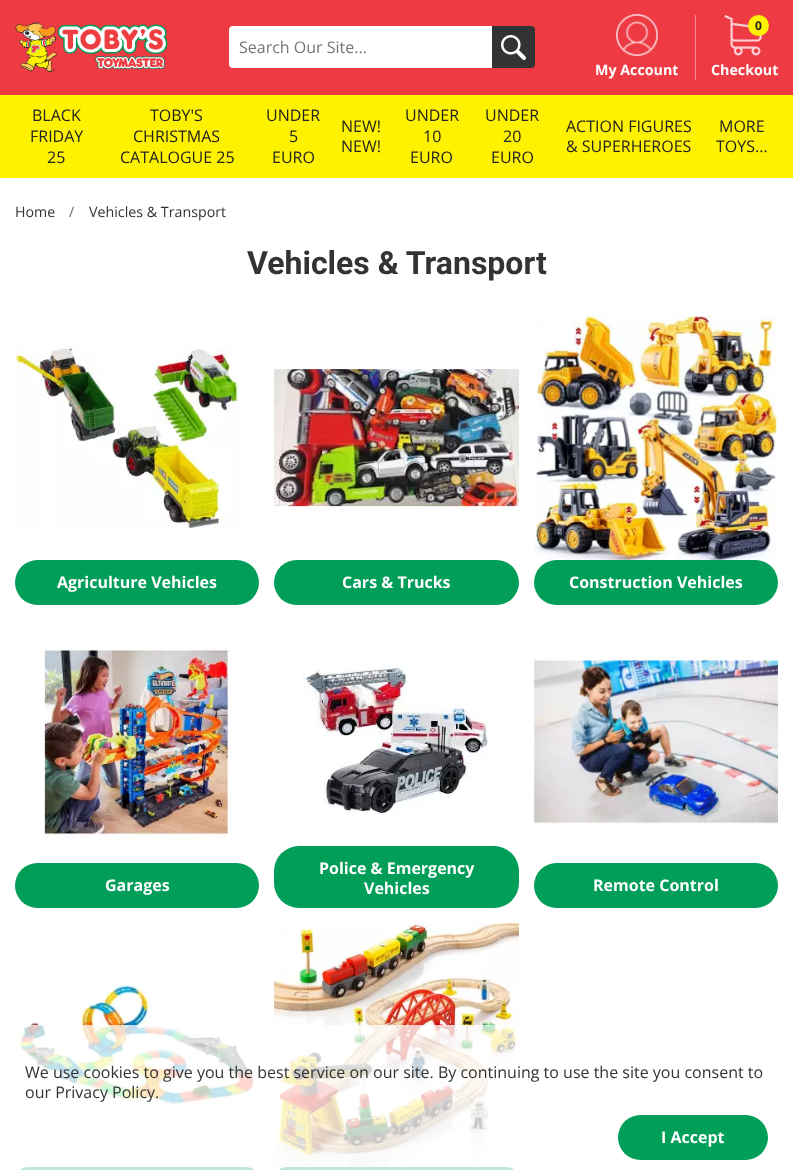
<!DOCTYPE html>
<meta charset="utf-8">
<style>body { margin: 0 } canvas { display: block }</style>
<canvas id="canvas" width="793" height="1170"></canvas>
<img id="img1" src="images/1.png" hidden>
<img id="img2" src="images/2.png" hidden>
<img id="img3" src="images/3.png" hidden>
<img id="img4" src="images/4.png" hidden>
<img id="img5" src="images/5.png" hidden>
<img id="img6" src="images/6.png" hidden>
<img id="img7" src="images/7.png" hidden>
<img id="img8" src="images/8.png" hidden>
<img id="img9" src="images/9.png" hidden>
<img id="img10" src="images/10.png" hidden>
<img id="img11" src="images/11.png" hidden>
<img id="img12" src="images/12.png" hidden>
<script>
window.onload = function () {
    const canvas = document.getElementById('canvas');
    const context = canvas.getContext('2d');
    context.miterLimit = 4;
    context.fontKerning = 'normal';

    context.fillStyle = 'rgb(255, 255, 255)';
    context.fillRect(0, 0, 793, 1170);
    context.fillStyle = 'rgb(238, 58, 67)';
    context.fillRect(0, 0, 793, 95);
    context.drawImage(document.getElementById('img1'), 15, 22, 153, 50);
    context.fillStyle = 'rgb(255, 255, 255)';
    context.beginPath();
    context.roundRect(229, 26, 305, 42, 4);
    context.fill();
    context.fillStyle = 'rgb(51, 51, 51)';
    context.beginPath();
    context.roundRect(492, 26, 43, 42, [0, 4, 4, 0]);
    context.fill();
    context.drawImage(document.getElementById('img2'), 501, 35, 25, 25);
    context.fillStyle = 'rgb(245, 137, 142)';
    context.fillRect(695, 15, 1, 65);
    context.drawImage(document.getElementById('img3'), 724, 15, 38, 41);
    context.fillStyle = 'rgb(255, 242, 0)';
    context.beginPath();
    context.arc(758.5, 25.5, 10.5, 0, 2 * Math.PI);
    context.fill();
    context.drawImage(document.getElementById('img4'), 616, 14, 42, 42);
    context.fillStyle = 'rgb(254, 242, 0)';
    context.fillRect(0, 95, 793, 83);
    context.drawImage(document.getElementById('img5'), 15, 346, 225, 183);
    context.fillStyle = 'rgb(1, 158, 89)';
    context.beginPath();
    context.roundRect(15, 560, 244, 45, 22.5);
    context.fill();
    context.drawImage(document.getElementById('img6'), 274, 369, 245, 138);
    context.beginPath();
    context.roundRect(274, 560, 245, 45, 22.5);
    context.fill();
    context.drawImage(document.getElementById('img7'), 534, 316, 243, 245);
    context.beginPath();
    context.roundRect(534, 560, 244, 45, 22.5);
    context.fill();
    context.drawImage(document.getElementById('img8'), 44, 646, 184, 193);
    context.beginPath();
    context.roundRect(15, 863, 244, 45, 22.5);
    context.fill();
    context.drawImage(document.getElementById('img9'), 303, 666, 186, 149);
    context.beginPath();
    context.roundRect(274, 846, 245, 62, 25);
    context.fill();
    context.drawImage(document.getElementById('img10'), 534, 660, 244, 164);
    context.beginPath();
    context.roundRect(534, 863, 244, 45, 22.5);
    context.fill();
    context.drawImage(document.getElementById('img11'), 15, 983, 240, 125);
    context.beginPath();
    context.roundRect(15, 1167, 244, 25, 22);
    context.fill();
    context.drawImage(document.getElementById('img12'), 274, 923, 245, 244);
    context.beginPath();
    context.roundRect(274, 1167, 245, 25, 22);
    context.fill();
    context.fillStyle = 'rgba(255, 255, 255, 0.75)';
    context.fillRect(15, 1025, 504, 145);
    context.fillStyle = 'rgb(1, 158, 89)';
    context.beginPath();
    context.roundRect(618, 1115, 150, 45, 22.5);
    context.fill();
    context.font = '16px Open Sans';
    context.fillStyle = 'rgb(117, 117, 117)';
    context.fillText('Search Our Site...', 239, 53);
    context.font = 'bold 12px Open Sans';
    context.fillStyle = 'rgb(34, 34, 34)';
    context.fillText('0', 755, 30);
    context.font = 'bold 14.25px Open Sans';
    context.fillStyle = 'rgb(255, 255, 255)';
    context.fillText('Checkout', 711, 75);
    context.fillText('My Account', 595, 75);
    context.font = '16px Open Sans';
    context.fillStyle = 'rgb(34, 34, 34)';
    context.fillText('BLACK', 32, 121);
    context.fillText('FRIDAY', 30, 142);
    context.fillText('25', 47, 163);
    context.fillText('TOBY\'S', 150, 121);
    context.fillText('CHRISTMAS', 133, 142);
    context.fillText('CATALOGUE 25', 120, 163);
    context.fillText('UNDER', 266, 121);
    context.fillText('5', 289, 142);
    context.fillText('EURO', 272, 163);
    context.fillText('NEW!', 341, 132);
    context.fillText('NEW!', 341, 152);
    context.fillText('UNDER', 405, 121);
    context.fillText('10', 423, 142);
    context.fillText('EURO', 410, 163);
    context.fillText('UNDER', 485, 121);
    context.fillText('20', 503, 142);
    context.fillText('EURO', 491, 163);
    context.fillText('ACTION FIGURES', 566, 132);
    context.fillText('& SUPERHEROES', 566, 152);
    context.fillText('MORE', 719, 132);
    context.fillText('TOYS...', 716, 152);
    context.font = '14.25px Open Sans';
    context.fillStyle = 'rgb(51, 51, 51)';
    context.fillText('Home', 15, 217);
    context.fillStyle = 'rgb(102, 102, 102)';
    context.fillText('/', 69, 217);
    context.fillStyle = 'rgb(51, 51, 51)';
    context.fillText('Vehicles & Transport', 89, 217);
    context.font = 'bold 32px Roboto';
    context.fillText('Vehicles & Transport', 247, 274);
    context.font = 'bold 16px Open Sans';
    context.fillStyle = 'rgb(255, 255, 255)';
    context.fillText('Agriculture Vehicles', 57, 588);
    context.fillText('Cars & Trucks', 342, 588);
    context.fillText('Construction Vehicles', 569, 588);
    context.fillText('Garages', 105, 891);
    context.fillText('Police & Emergency', 319, 874);
    context.fillText('Vehicles', 364, 894);
    context.fillText('Remote Control', 593, 891);
    context.font = '16px Open Sans';
    context.fillStyle = 'rgb(51, 51, 51)';
    context.fillText('We use cookies to give you the best service on our site. By continuing to use the site you consent to', 25, 1078);
    context.fillText('our Privacy Policy.', 25, 1098);
    context.font = 'bold 16px Open Sans';
    context.fillStyle = 'rgb(255, 255, 255)';
    context.fillText('I Accept', 661, 1143);
};
</script>
